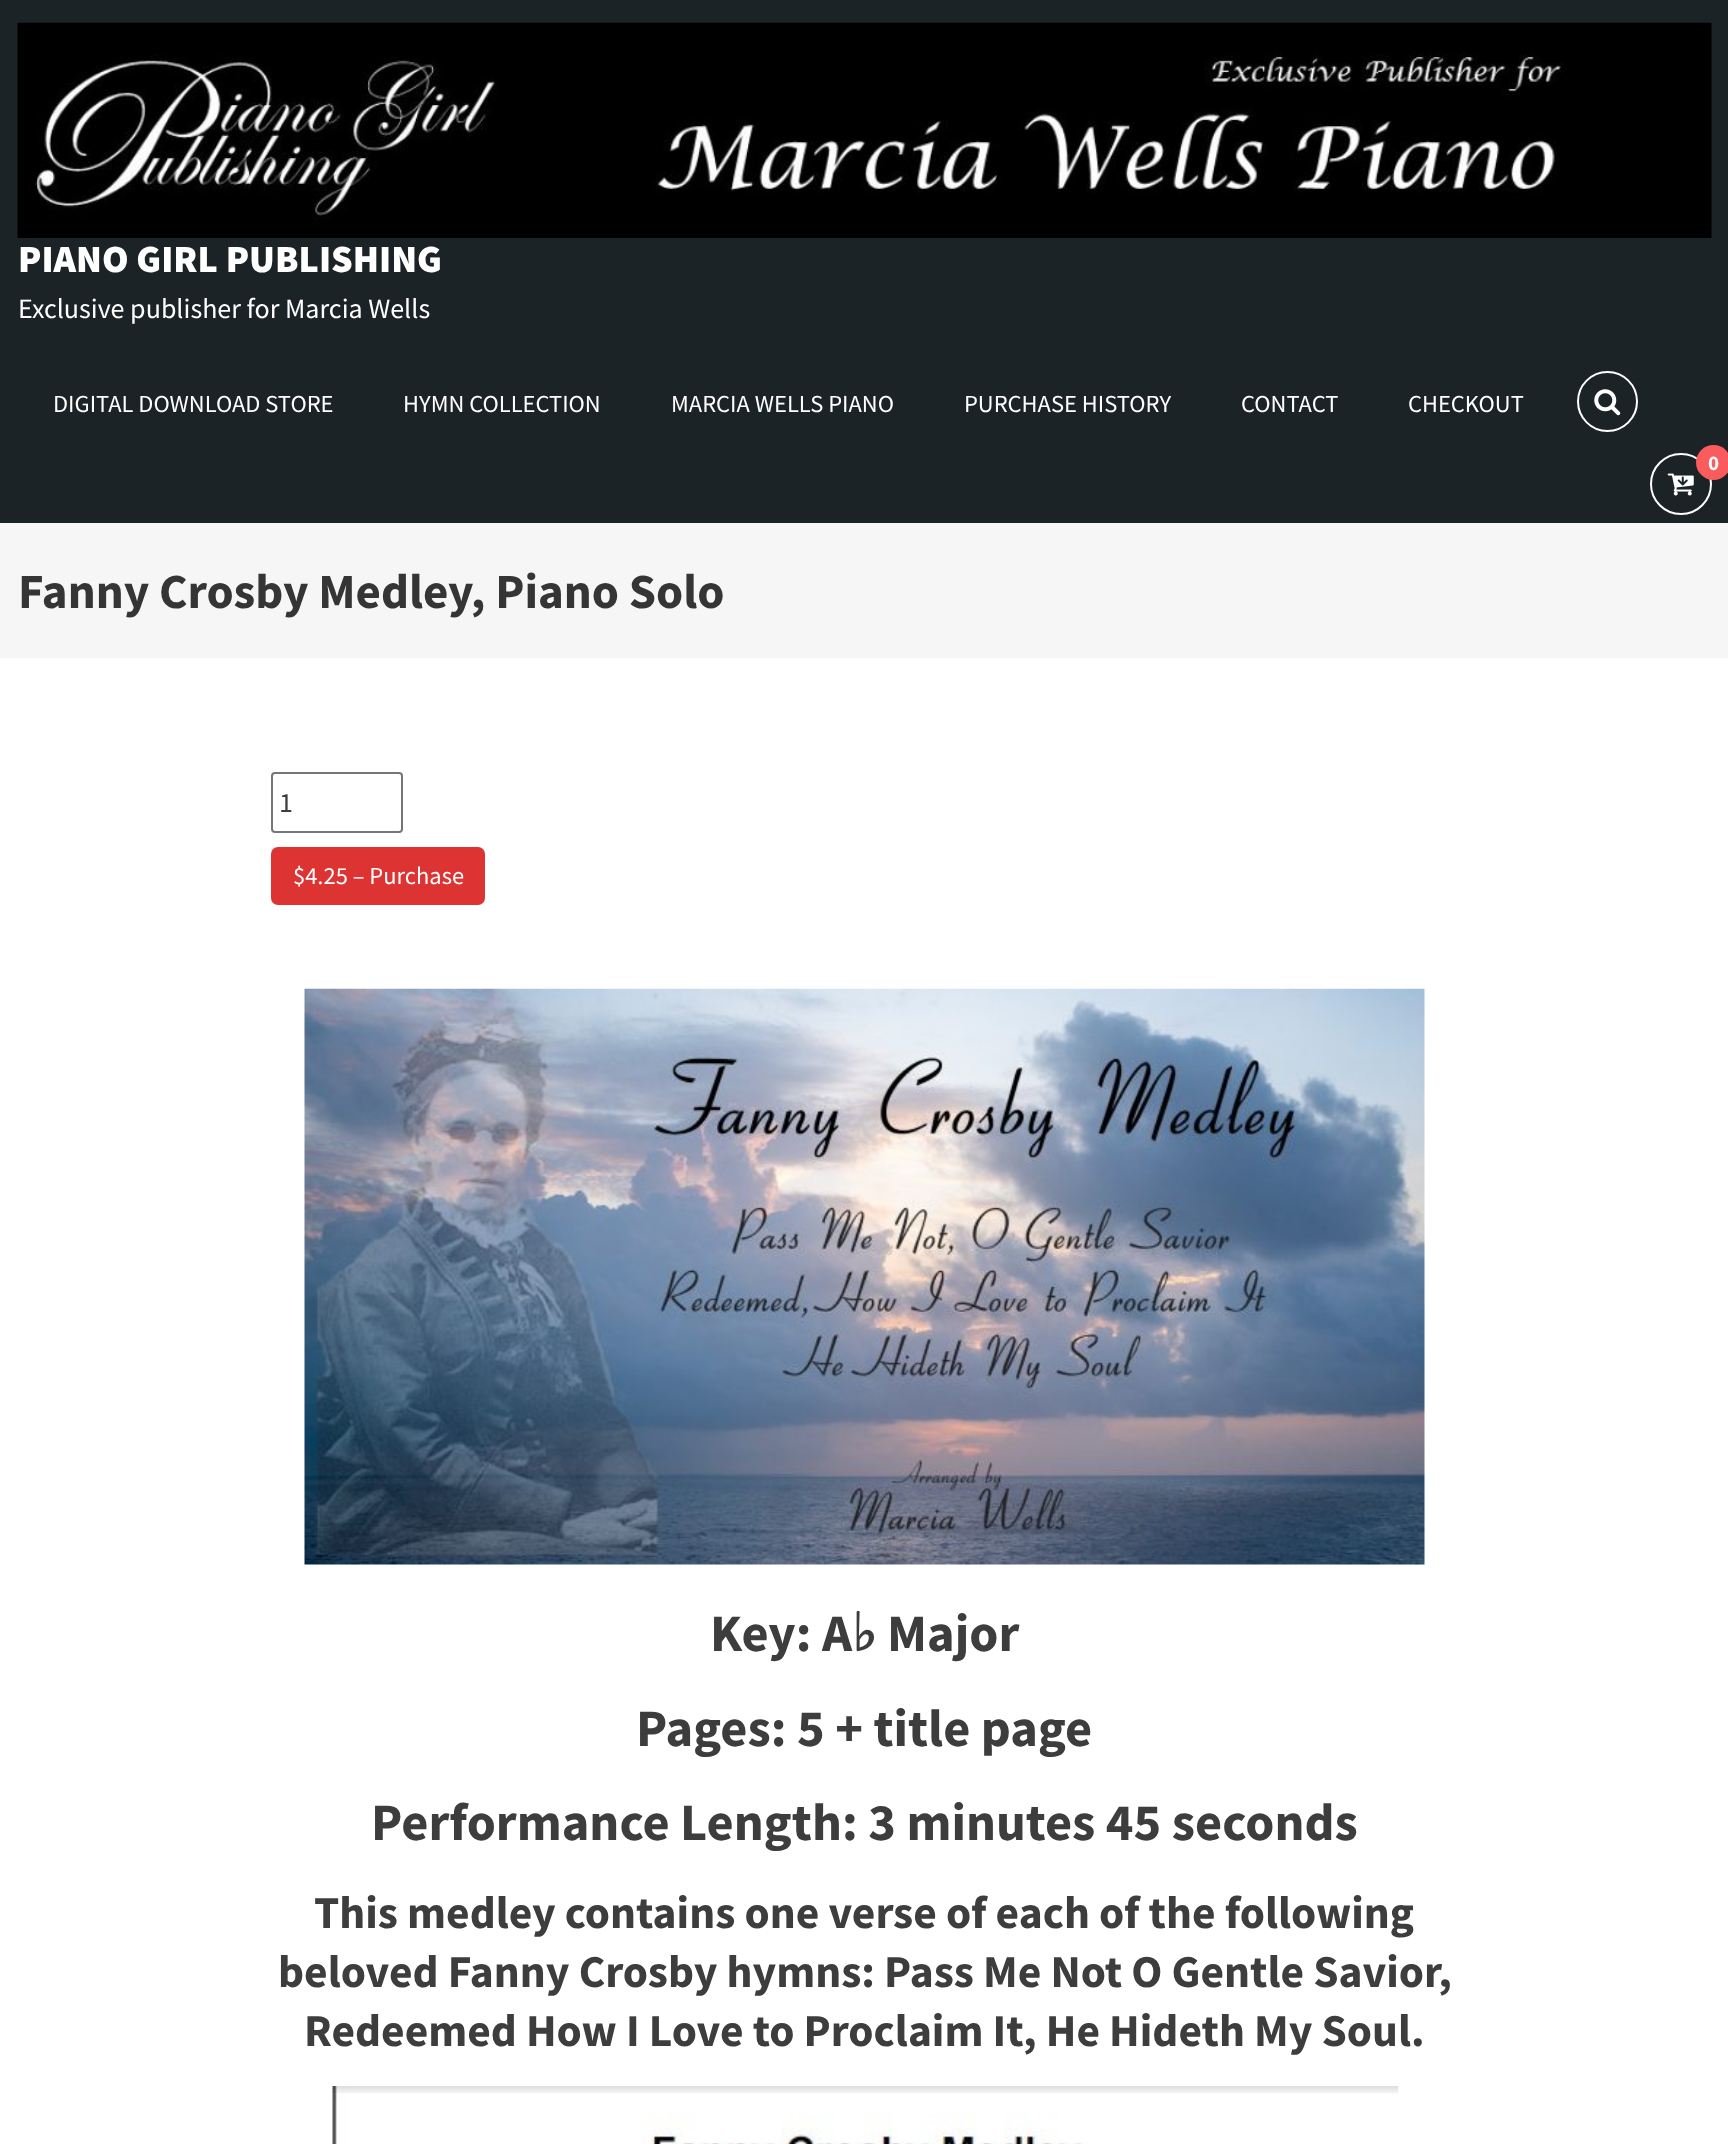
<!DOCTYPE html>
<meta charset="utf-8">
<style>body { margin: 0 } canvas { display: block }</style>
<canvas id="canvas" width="1728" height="2144"></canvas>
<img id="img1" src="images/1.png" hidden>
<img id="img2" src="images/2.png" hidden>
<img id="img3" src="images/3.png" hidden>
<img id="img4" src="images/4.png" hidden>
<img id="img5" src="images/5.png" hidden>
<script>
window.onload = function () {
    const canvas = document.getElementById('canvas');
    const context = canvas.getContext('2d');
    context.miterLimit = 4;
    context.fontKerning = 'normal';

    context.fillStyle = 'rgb(255, 255, 255)';
    context.fillRect(0, 0, 1728, 2144);
    context.fillStyle = 'rgb(28, 35, 38)';
    context.fillRect(0, 0, 1728, 523);
    context.drawImage(document.getElementById('img1'), 17, 22, 1695, 216);
    context.beginPath();
    context.arc(1607.5, 401.5, 29.5, 0, 2 * Math.PI);
    context.strokeStyle = 'rgb(255, 255, 255)';
    context.lineWidth = 2;
    context.stroke();
    context.drawImage(document.getElementById('img2'), 1594, 389, 27, 27);
    context.beginPath();
    context.arc(1681, 484, 30, 0, 2 * Math.PI);
    context.stroke();
    context.fillStyle = 'rgb(250, 92, 93)';
    context.beginPath();
    context.arc(1713.5, 462.5, 17.5, 0, 2 * Math.PI);
    context.fill();
    context.drawImage(document.getElementById('img3'), 1667, 473, 27, 23);
    context.fillStyle = 'rgb(246, 246, 246)';
    context.fillRect(0, 523, 1728, 135);
    context.beginPath();
    context.roundRect(272, 773, 130, 59, 3);
    context.strokeStyle = 'rgb(118, 118, 118)';
    context.stroke();
    context.fillStyle = 'rgb(221, 51, 51)';
    context.beginPath();
    context.roundRect(271, 847, 214, 58, 7);
    context.fill();
    context.drawImage(document.getElementById('img4'), 304, 988, 1121, 577);
    context.drawImage(document.getElementById('img5'), 332, 2086, 1067, 58);
    context.font = '900 38.5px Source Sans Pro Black';
    context.fillStyle = 'rgb(255, 255, 255)';
    context.fillText('PIANO GIRL PUBLISHING', 18, 272);
    context.font = '28px Source Sans Pro';
    context.fillText('Exclusive publisher for Marcia Wells', 18, 318);
    context.font = '24.5px Source Sans Pro';
    context.fillText('DIGITAL DOWNLOAD STORE', 53, 412);
    context.fillText('HYMN COLLECTION', 403, 412);
    context.fillText('MARCIA WELLS PIANO', 671, 412);
    context.fillText('PURCHASE HISTORY', 964, 412);
    context.fillText('CONTACT', 1241, 412);
    context.fillText('CHECKOUT', 1408, 412);
    context.font = 'bold 21px Source Sans Pro';
    context.fillText('0', 1708, 470);
    context.font = 'bold 49px Source Sans Pro';
    context.fillStyle = 'rgb(53, 53, 53)';
    context.fillText('Fanny Crosby Medley, Piano Solo', 18, 608);
    context.font = '28px Source Sans Pro';
    context.fillStyle = 'rgb(61, 61, 61)';
    context.fillText('1', 279, 812);
    context.font = '24.5px Source Sans Pro';
    context.fillStyle = 'rgb(255, 255, 255)';
    context.fillText('$4.25 – Purchase', 293, 884);
    context.font = 'bold 52.5px Source Sans Pro';
    context.fillStyle = 'rgb(61, 61, 61)';
    context.fillText('Key: A', 710, 1651);
    context.font = 'bold 52.5px DejaVu Sans';
    context.fillText('♭', 852, 1651);
    context.font = 'bold 52.5px Source Sans Pro';
    context.fillText('Major', 887, 1651);
    context.fillText('Pages: 5 + title page', 636, 1746);
    context.fillText('Performance Length: 3 minutes 45 seconds', 371, 1840);
    context.font = 'bold 45.5px Source Sans Pro';
    context.fillText('This medley contains one verse of each of the following', 314, 1928);
    context.fillText('beloved Fanny Crosby hymns: Pass Me Not O Gentle Savior,', 278, 1987);
    context.fillText('Redeemed How I Love to Proclaim It, He Hideth My Soul.', 304, 2046);
};
</script>
